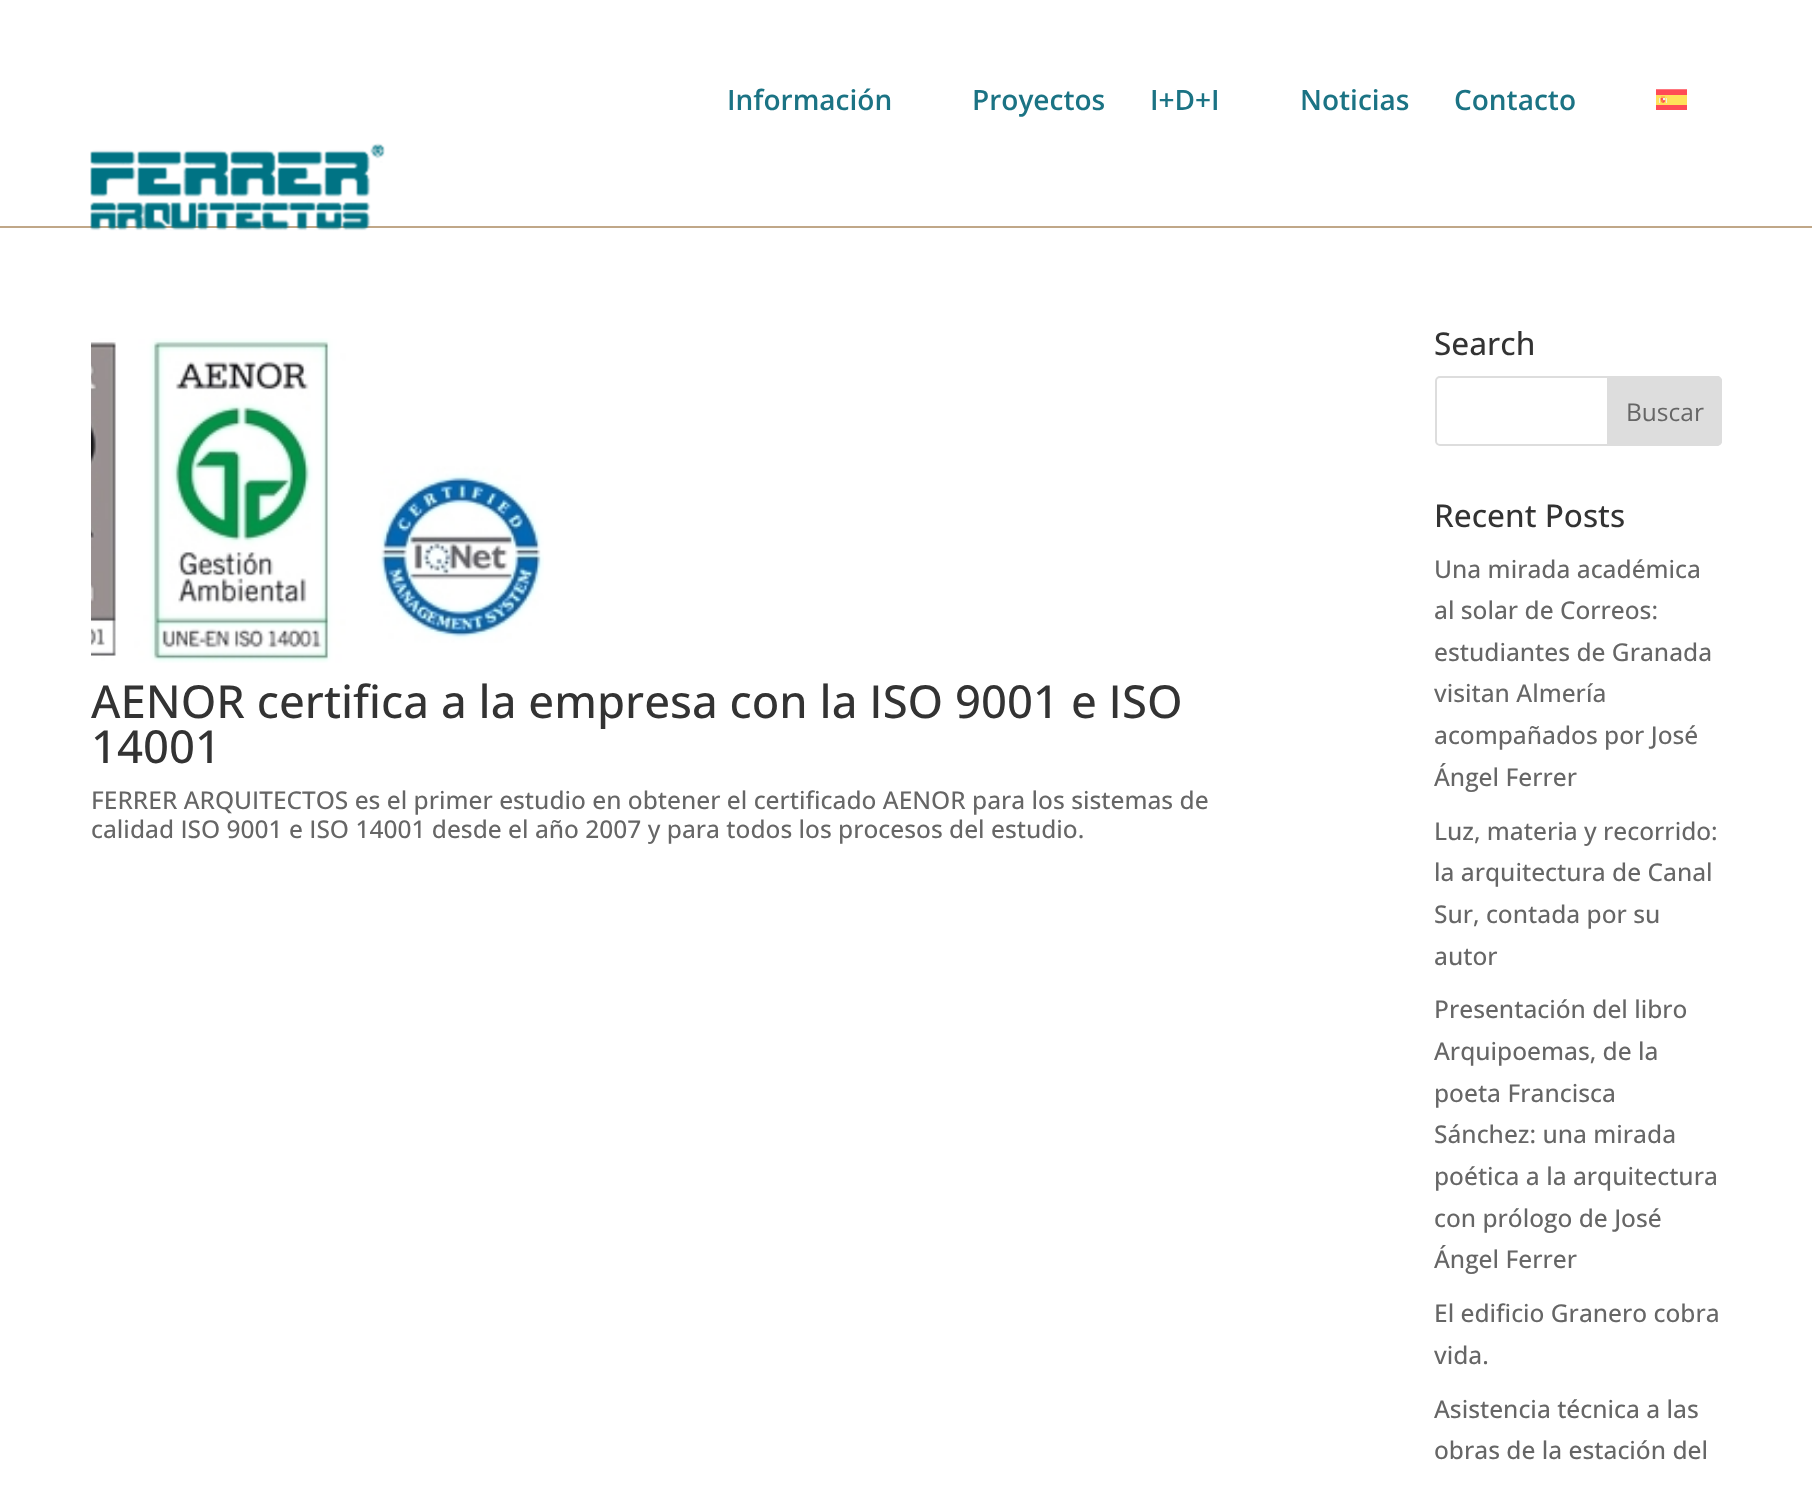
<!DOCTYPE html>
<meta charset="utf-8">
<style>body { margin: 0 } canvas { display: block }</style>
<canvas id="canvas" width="1812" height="1489"></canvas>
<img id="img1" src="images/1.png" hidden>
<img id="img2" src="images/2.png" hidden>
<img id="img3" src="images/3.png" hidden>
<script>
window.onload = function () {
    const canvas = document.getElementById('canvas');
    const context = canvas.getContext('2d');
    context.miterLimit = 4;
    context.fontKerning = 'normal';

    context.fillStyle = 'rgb(255, 255, 255)';
    context.fillRect(0, 0, 1812, 1489);
    context.fillStyle = 'rgb(192, 167, 136)';
    context.fillRect(0, 226, 1812, 2);
    context.drawImage(document.getElementById('img1'), 1656, 89, 31, 21);
    context.drawImage(document.getElementById('img2'), 90, 143, 295, 88);
    context.drawImage(document.getElementById('img3'), 91, 338, 453, 325);
    context.beginPath();
    context.roundRect(1436, 377, 285, 68, 4);
    context.strokeStyle = 'rgb(221, 221, 221)';
    context.lineWidth = 2;
    context.stroke();
    context.fillStyle = 'rgb(221, 221, 221)';
    context.beginPath();
    context.roundRect(1608, 377, 113, 68, [0, 4, 4, 0]);
    context.fill();
    context.stroke();
    context.font = '600 28px Open Sans';
    context.fillStyle = 'rgb(27, 115, 132)';
    context.fillText('Información', 727, 110);
    context.fillText('Proyectos', 972, 110);
    context.fillText('I+D+I', 1150, 110);
    context.fillText('Noticias', 1300, 110);
    context.fillText('Contacto', 1454, 110);
    context.font = '500 45.5px Open Sans';
    context.fillStyle = 'rgb(51, 51, 51)';
    context.fillText('AENOR certifica a la empresa con la ISO 9001 e ISO', 91, 718);
    context.fillText('14001', 91, 763);
    context.font = '500 24.5px Open Sans';
    context.fillStyle = 'rgb(102, 102, 102)';
    context.fillText('FERRER ARQUITECTOS es el primer estudio en obtener el certificado AENOR para los sistemas de', 91, 809);
    context.fillText('calidad ISO 9001 e ISO 14001 desde el año 2007 y para todos los procesos del estudio.', 91, 838);
    context.font = '500 31.5px Open Sans';
    context.fillStyle = 'rgb(51, 51, 51)';
    context.fillText('Search', 1434, 355);
    context.font = '24.5px Open Sans';
    context.fillStyle = 'rgb(102, 102, 102)';
    context.fillText('Buscar', 1626, 421);
    context.font = '500 31.5px Open Sans';
    context.fillStyle = 'rgb(51, 51, 51)';
    context.fillText('Recent Posts', 1434, 527);
    context.font = '500 24.5px Open Sans';
    context.fillStyle = 'rgb(102, 102, 102)';
    context.fillText('Una mirada académica', 1434, 578);
    context.fillText('al solar de Correos:', 1434, 619);
    context.fillText('estudiantes de Granada', 1434, 661);
    context.fillText('visitan Almería', 1434, 702);
    context.fillText('acompañados por José', 1434, 744);
    context.fillText('Ángel Ferrer', 1434, 786);
    context.fillText('Luz, materia y recorrido:', 1434, 840);
    context.fillText('la arquitectura de Canal', 1434, 881);
    context.fillText('Sur, contada por su', 1434, 923);
    context.fillText('autor', 1434, 965);
    context.fillText('Presentación del libro', 1434, 1018);
    context.fillText('Arquipoemas, de la', 1434, 1060);
    context.fillText('poeta Francisca', 1434, 1102);
    context.fillText('Sánchez: una mirada', 1434, 1143);
    context.fillText('poética a la arquitectura', 1434, 1185);
    context.fillText('con prólogo de José', 1434, 1227);
    context.fillText('Ángel Ferrer', 1434, 1268);
    context.fillText('El edificio Granero cobra', 1434, 1322);
    context.fillText('vida.', 1434, 1364);
    context.fillText('Asistencia técnica a las', 1434, 1418);
    context.fillText('obras de la estación del', 1434, 1459);
};
</script>
